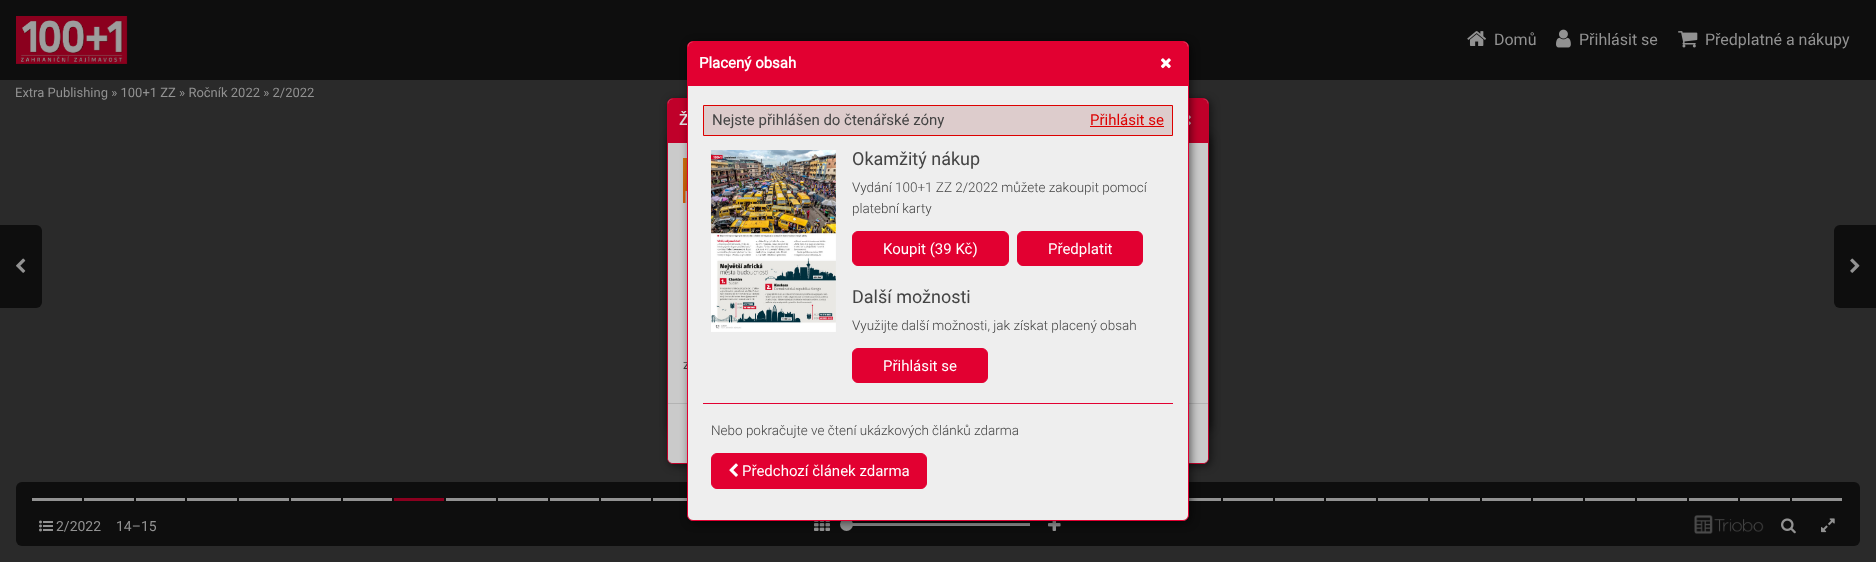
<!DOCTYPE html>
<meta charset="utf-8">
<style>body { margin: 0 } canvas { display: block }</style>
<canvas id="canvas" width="1876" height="562"></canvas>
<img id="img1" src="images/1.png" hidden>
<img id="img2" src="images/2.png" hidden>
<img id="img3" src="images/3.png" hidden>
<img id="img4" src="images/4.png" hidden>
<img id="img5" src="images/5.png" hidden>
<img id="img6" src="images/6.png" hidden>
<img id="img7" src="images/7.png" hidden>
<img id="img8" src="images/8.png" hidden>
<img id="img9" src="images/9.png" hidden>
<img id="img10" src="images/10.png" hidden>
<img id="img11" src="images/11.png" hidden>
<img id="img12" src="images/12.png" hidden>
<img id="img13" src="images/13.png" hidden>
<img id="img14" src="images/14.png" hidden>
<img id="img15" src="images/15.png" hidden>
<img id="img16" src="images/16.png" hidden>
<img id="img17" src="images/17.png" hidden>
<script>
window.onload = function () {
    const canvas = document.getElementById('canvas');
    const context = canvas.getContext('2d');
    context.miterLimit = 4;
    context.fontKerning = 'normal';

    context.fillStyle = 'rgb(42, 42, 42)';
    context.fillRect(0, 0, 1876, 562);
    context.fillStyle = 'rgb(14, 14, 14)';
    context.fillRect(0, 0, 1876, 80);
    context.drawImage(document.getElementById('img1'), 16, 16, 112, 48);
    context.drawImage(document.getElementById('img2'), 1467, 31, 19, 15);
    context.drawImage(document.getElementById('img3'), 1556, 29, 15, 19);
    context.drawImage(document.getElementById('img4'), 1678, 31, 20, 17);
    context.beginPath();
    context.roundRect(0, 225, 42, 83, [0, 6, 6, 0]);
    context.fill();
    context.drawImage(document.getElementById('img5'), 16, 258, 10, 15);
    context.beginPath();
    context.roundRect(1834, 225, 42, 83, [6, 0, 0, 6]);
    context.fill();
    context.drawImage(document.getElementById('img6'), 1850, 258, 10, 15);
    context.beginPath();
    context.roundRect(16, 482, 1844, 64, 6);
    context.fill();
    context.fillStyle = 'rgb(146, 146, 146)';
    context.fillRect(32, 498, 50, 3);
    context.fillRect(84, 498, 50, 3);
    context.fillRect(136, 498, 49, 3);
    context.fillRect(187, 498, 50, 3);
    context.fillRect(239, 498, 50, 3);
    context.fillRect(291, 498, 50, 3);
    context.fillRect(343, 498, 49, 3);
    context.fillRect(446, 498, 50, 3);
    context.fillRect(498, 498, 50, 3);
    context.fillRect(550, 498, 49, 3);
    context.fillRect(601, 498, 50, 3);
    context.fillRect(653, 498, 34, 3);
    context.fillRect(1189, 498, 32, 3);
    context.fillRect(1223, 498, 50, 3);
    context.fillRect(1275, 498, 49, 3);
    context.fillRect(1326, 498, 50, 3);
    context.fillRect(1378, 498, 50, 3);
    context.fillRect(1430, 498, 50, 3);
    context.fillRect(1482, 498, 49, 3);
    context.fillRect(1533, 498, 50, 3);
    context.fillRect(1585, 498, 50, 3);
    context.fillRect(1637, 498, 50, 3);
    context.fillRect(1689, 498, 49, 3);
    context.fillRect(1740, 498, 50, 3);
    context.fillRect(1792, 498, 50, 3);
    context.fillStyle = 'rgb(139, 0, 31)';
    context.fillRect(394, 498, 50, 3);
    context.drawImage(document.getElementById('img7'), 39, 520, 14, 12);
    context.drawImage(document.getElementById('img8'), 814, 521, 16, 10);
    context.fillStyle = 'rgb(146, 146, 146)';
    context.fillRect(846, 523, 184, 3);
    context.beginPath();
    context.arc(846.5, 524.5, 6.5, 0, 2 * Math.PI);
    context.fill();
    context.drawImage(document.getElementById('img9'), 1048, 521, 13, 10);
    context.drawImage(document.getElementById('img10'), 1694, 515, 70, 19);
    context.drawImage(document.getElementById('img11'), 1781, 518, 15, 16);
    context.drawImage(document.getElementById('img12'), 1821, 518, 14, 15);
    context.fillStyle = 'rgba(0, 0, 0, 0.53)';
    context.filter = 'blur(4px)';
    context.beginPath();
    context.roundRect(669, 100, 542, 366, 6);
    context.fill();
    context.filter = 'none';
    context.filter = 'blur(4px)';
    context.beginPath();
    context.roundRect(669, 135, 542, 296, 6);
    context.fill();
    context.filter = 'none';
    context.fillStyle = 'rgb(202, 202, 202)';
    context.beginPath();
    context.roundRect(667.5, 98.5, 541, 365, 5.5);
    context.fill();
    context.strokeStyle = 'rgb(192, 0, 42)';
    context.stroke();
    context.fillStyle = 'rgb(192, 0, 42)';
    context.beginPath();
    context.roundRect(668, 99, 540, 44, [5, 5, 0, 0]);
    context.fill();
    context.drawImage(document.getElementById('img13'), 1189, 115, 2, 10);
    context.drawImage(document.getElementById('img14'), 683, 158, 4, 45);
    context.fillStyle = 'rgb(202, 202, 202)';
    context.beginPath();
    context.roundRect(668, 403, 540, 60, [0, 0, 5, 5]);
    context.fill();
    context.fillStyle = 'rgb(179, 179, 179)';
    context.fillRect(668, 403, 540, 1);
    context.fillStyle = 'rgba(0, 0, 0, 0.53)';
    context.filter = 'blur(4px)';
    context.beginPath();
    context.roundRect(689, 43, 502, 480, 6);
    context.fill();
    context.filter = 'none';
    context.font = '16px Roboto';
    context.fillStyle = 'rgb(146, 146, 146)';
    context.fillText('Domů', 1494, 45);
    context.fillText('Přihlásit se', 1579, 45);
    context.fillText('Předplatné a nákupy', 1705, 45);
    context.font = '13px Roboto';
    context.fillText('Extra Publishing » 100+1 ZZ » Ročník 2022 » 2/2022', 15, 97);
    context.font = '14px Roboto';
    context.fillText('2/2022', 56, 531);
    context.fillText('14–15', 116, 531);
    context.font = 'bold 15px Roboto';
    context.fillStyle = 'rgb(217, 217, 217)';
    context.fillText('Ž', 679, 125);
    context.font = '13px Roboto';
    context.fillStyle = 'rgb(58, 58, 58)';
    context.fillText('z', 683, 369);
    context.fillStyle = 'rgb(238, 238, 238)';
    context.beginPath();
    context.roundRect(687.5, 41.5, 501, 479, 5.5);
    context.fill();
    context.strokeStyle = 'rgb(226, 0, 49)';
    context.stroke();
    context.fillStyle = 'rgb(226, 0, 49)';
    context.beginPath();
    context.roundRect(688, 42, 500, 44, [5, 5, 0, 0]);
    context.fill();
    context.font = 'bold 15px Roboto';
    context.fillStyle = 'rgb(255, 255, 255)';
    context.fillText('Placený obsah', 699, 68);
    context.drawImage(document.getElementById('img15'), 1161, 58, 10, 11);
    context.fillStyle = 'rgb(221, 204, 204)';
    context.beginPath();
    context.rect(703.5, 105.5, 469, 30);
    context.fill();
    context.strokeStyle = 'rgb(221, 0, 0)';
    context.stroke();
    context.font = '15px Roboto';
    context.fillStyle = 'rgb(68, 68, 68)';
    context.fillText('Nejste přihlášen do čtenářské zóny', 712, 125);
    context.fillStyle = 'rgb(221, 0, 0)';
    context.fillText('Přihlásit se', 1090, 125);
    context.fillRect(1090, 126, 74, 1);
    context.drawImage(document.getElementById('img16'), 711, 150, 125, 182);
    context.font = '18px Roboto';
    context.fillStyle = 'rgb(68, 68, 68)';
    context.fillText('Okamžitý nákup', 852, 165);
    context.font = '300 13.5px Roboto';
    context.fillText('Vydání 100+1 ZZ 2/2022 můžete zakoupit pomocí', 852, 192);
    context.fillText('platební karty', 852, 213);
    context.fillStyle = 'rgb(226, 0, 49)';
    context.beginPath();
    context.roundRect(852.5, 231.5, 156, 34, 5.5);
    context.fill();
    context.strokeStyle = 'rgb(226, 0, 49)';
    context.stroke();
    context.font = '15px Roboto';
    context.fillStyle = 'rgb(255, 255, 255)';
    context.fillText('Koupit (39 Kč)', 883, 254);
    context.fillStyle = 'rgb(226, 0, 49)';
    context.beginPath();
    context.roundRect(1017.5, 231.5, 125, 34, 5.5);
    context.fill();
    context.stroke();
    context.fillStyle = 'rgb(255, 255, 255)';
    context.fillText('Předplatit', 1048, 254);
    context.font = '18px Roboto';
    context.fillStyle = 'rgb(68, 68, 68)';
    context.fillText('Další možnosti', 852, 303);
    context.font = '300 13.5px Roboto';
    context.fillText('Využijte další možnosti, jak získat placený obsah', 852, 330);
    context.fillStyle = 'rgb(226, 0, 49)';
    context.beginPath();
    context.roundRect(852.5, 348.5, 135, 34, 5.5);
    context.fill();
    context.stroke();
    context.font = '15px Roboto';
    context.fillStyle = 'rgb(255, 255, 255)';
    context.fillText('Přihlásit se', 883, 371);
    context.fillStyle = 'rgb(226, 0, 49)';
    context.fillRect(703, 403, 470, 1);
    context.font = '300 13.5px Roboto';
    context.fillStyle = 'rgb(68, 68, 68)';
    context.fillText('Nebo pokračujte ve čtení ukázkových článků zdarma', 711, 435);
    context.fillStyle = 'rgb(226, 0, 49)';
    context.beginPath();
    context.roundRect(711.5, 453.5, 215, 35, 5.5);
    context.fill();
    context.stroke();
    context.drawImage(document.getElementById('img17'), 729, 463, 9, 14);
    context.font = '15px Roboto';
    context.fillStyle = 'rgb(255, 255, 255)';
    context.fillText('Předchozí článek zdarma', 742, 476);
};
</script>
